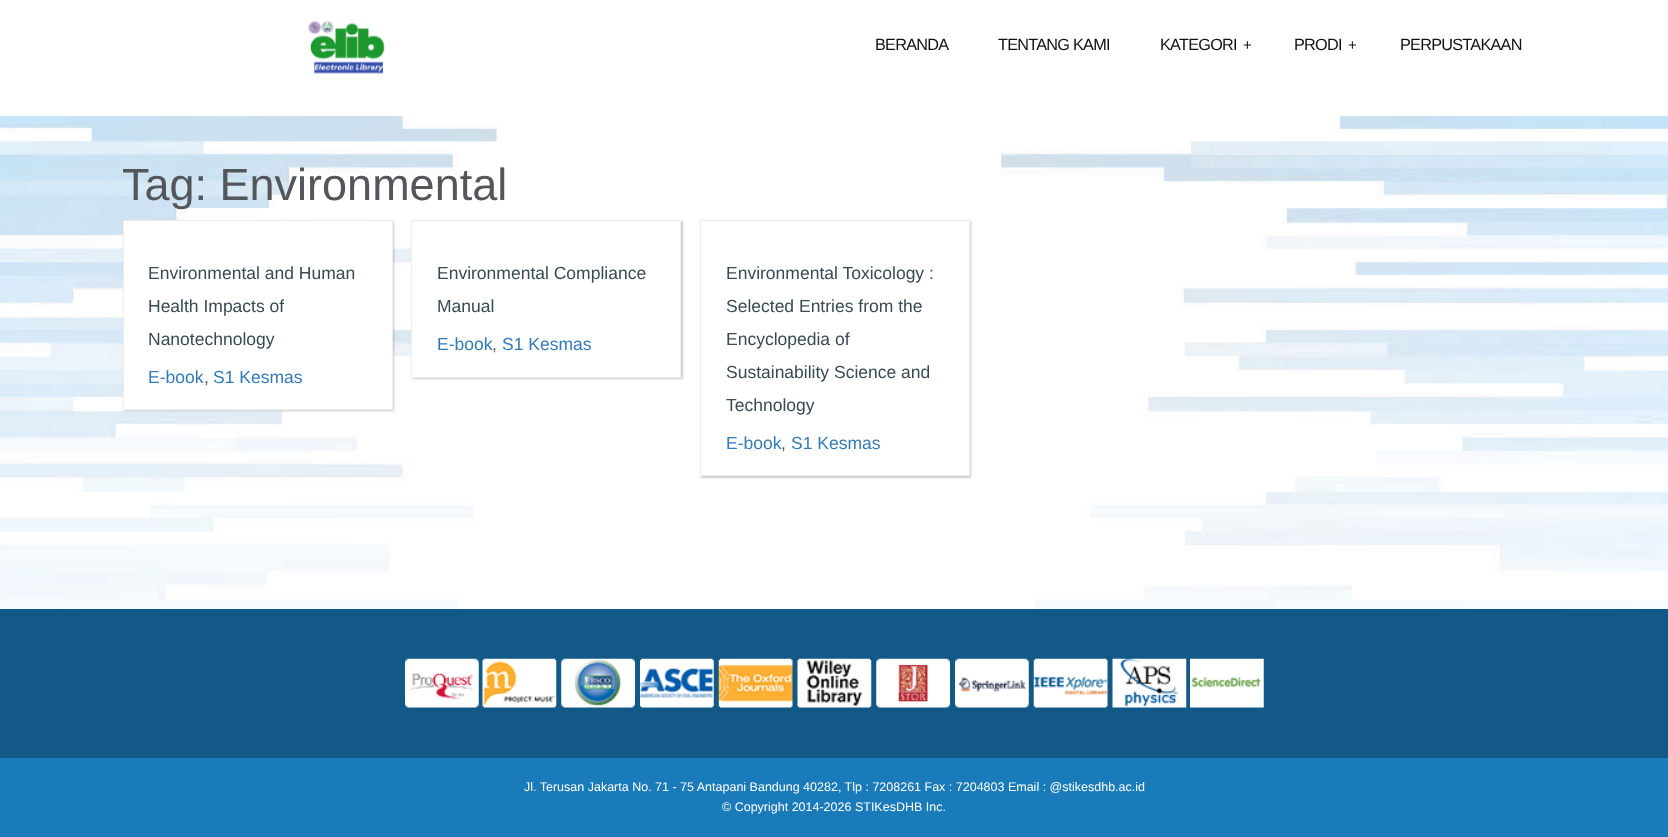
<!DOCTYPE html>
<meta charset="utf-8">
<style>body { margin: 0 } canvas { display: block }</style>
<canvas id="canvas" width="1668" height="837"></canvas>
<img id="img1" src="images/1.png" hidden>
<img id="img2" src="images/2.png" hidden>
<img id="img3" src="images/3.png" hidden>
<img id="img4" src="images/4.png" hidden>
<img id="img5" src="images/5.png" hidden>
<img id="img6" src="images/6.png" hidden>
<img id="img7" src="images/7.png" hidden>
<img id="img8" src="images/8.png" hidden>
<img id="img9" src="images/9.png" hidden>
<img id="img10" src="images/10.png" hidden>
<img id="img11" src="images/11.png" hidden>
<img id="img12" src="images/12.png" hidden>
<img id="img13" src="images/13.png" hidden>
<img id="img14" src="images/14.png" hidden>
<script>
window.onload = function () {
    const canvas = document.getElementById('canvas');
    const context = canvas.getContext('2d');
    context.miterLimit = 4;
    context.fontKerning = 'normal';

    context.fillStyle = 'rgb(255, 255, 255)';
    context.fillRect(0, 0, 1668, 837);
    context.drawImage(document.getElementById('img1'), 0, 116, 1668, 493);
    context.drawImage(document.getElementById('img2'), 0, 116, 1668, 1);
    context.drawImage(document.getElementById('img3'), 308, 20, 77, 54);
    context.fillStyle = 'rgba(0, 0, 0, 0.2)';
    context.filter = 'blur(1px)';
    context.beginPath();
    context.rect(124, 221, 270, 190);
    context.fill();
    context.filter = 'none';
    context.fillStyle = 'rgb(255, 255, 255)';
    context.beginPath();
    context.rect(123.5, 220.5, 269, 189);
    context.fill();
    context.strokeStyle = 'rgb(238, 238, 238)';
    context.stroke();
    context.fillStyle = 'rgba(0, 0, 0, 0.2)';
    context.filter = 'blur(1px)';
    context.beginPath();
    context.rect(413, 221, 270, 158);
    context.fill();
    context.filter = 'none';
    context.fillStyle = 'rgb(255, 255, 255)';
    context.beginPath();
    context.rect(411.5, 220.5, 269, 157);
    context.fill();
    context.stroke();
    context.save();
    context.beginPath();
    context.moveTo(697, 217);
    context.lineTo(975, 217);
    context.lineTo(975, 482);
    context.lineTo(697, 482);
    context.closePath();
    context.moveTo(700, 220);
    context.lineTo(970, 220);
    context.lineTo(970, 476);
    context.lineTo(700, 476);
    context.closePath();
    context.clip('evenodd');
    context.fillStyle = 'rgba(0, 0, 0, 0.2)';
    context.filter = 'blur(1px)';
    context.beginPath();
    context.rect(701, 221, 270, 257);
    context.fill();
    context.filter = 'none';
    context.restore();
    context.strokeRect(700.5, 220.5, 269, 255);
    context.fillStyle = 'rgb(19, 89, 135)';
    context.fillRect(0, 609, 1668, 149);
    context.drawImage(document.getElementById('img4'), 405, 658, 74, 50);
    context.drawImage(document.getElementById('img5'), 482, 658, 75, 50);
    context.drawImage(document.getElementById('img6'), 561, 658, 74, 50);
    context.drawImage(document.getElementById('img7'), 640, 658, 74, 50);
    context.drawImage(document.getElementById('img8'), 718, 658, 75, 50);
    context.drawImage(document.getElementById('img9'), 797, 658, 75, 50);
    context.drawImage(document.getElementById('img10'), 876, 658, 74, 50);
    context.drawImage(document.getElementById('img11'), 955, 658, 74, 50);
    context.drawImage(document.getElementById('img12'), 1033, 658, 75, 50);
    context.drawImage(document.getElementById('img13'), 1112, 658, 75, 50);
    context.drawImage(document.getElementById('img14'), 1190, 658, 74, 50);
    context.fillStyle = 'rgb(26, 123, 186)';
    context.fillRect(0, 758, 1668, 79);
    context.letterSpacing = '-0.75px';
    context.font = '16.25px Liberation Sans';
    context.fillStyle = 'rgb(17, 17, 17)';
    context.fillText('BERANDA', 875, 50);
    context.fillText('TENTANG KAMI', 998, 50);
    context.fillText('KATEGORI', 1160, 50);
    context.font = '15px Liberation Sans';
    context.fillText('+', 1243, 50);
    context.font = '16.25px Liberation Sans';
    context.fillText('PRODI', 1294, 50);
    context.font = '15px Liberation Sans';
    context.fillText('+', 1348, 50);
    context.font = '16.25px Liberation Sans';
    context.fillText('PERPUSTAKAAN', 1400, 50);
    context.letterSpacing = '0px';
    context.font = '45px Liberation Sans';
    context.fillStyle = 'rgb(83, 86, 90)';
    context.fillText('Tag: Environmental', 122, 200);
    context.font = '17.5px Liberation Sans';
    context.fillStyle = 'rgb(56, 74, 84)';
    context.fillText('Environmental and Human', 148, 279);
    context.fillText('Health Impacts of', 148, 312);
    context.fillText('Nanotechnology', 148, 345);
    context.fillStyle = 'rgb(51, 122, 183)';
    context.fillText('E-book', 148, 383);
    context.fillStyle = 'rgb(83, 86, 90)';
    context.fillText(',', 204, 383);
    context.fillStyle = 'rgb(51, 122, 183)';
    context.fillText('S1 Kesmas', 213, 383);
    context.fillStyle = 'rgb(56, 74, 84)';
    context.fillText('Environmental Compliance', 437, 279);
    context.fillText('Manual', 437, 312);
    context.fillStyle = 'rgb(51, 122, 183)';
    context.fillText('E-book', 437, 350);
    context.fillStyle = 'rgb(83, 86, 90)';
    context.fillText(',', 492, 350);
    context.fillStyle = 'rgb(51, 122, 183)';
    context.fillText('S1 Kesmas', 502, 350);
    context.fillStyle = 'rgb(56, 74, 84)';
    context.fillText('Environmental Toxicology :', 726, 279);
    context.fillText('Selected Entries from the', 726, 312);
    context.fillText('Encyclopedia of', 726, 345);
    context.fillText('Sustainability Science and', 726, 378);
    context.fillText('Technology', 726, 411);
    context.fillStyle = 'rgb(51, 122, 183)';
    context.fillText('E-book', 726, 449);
    context.fillStyle = 'rgb(83, 86, 90)';
    context.fillText(',', 781, 449);
    context.fillStyle = 'rgb(51, 122, 183)';
    context.fillText('S1 Kesmas', 791, 449);
    context.font = '12.5px Liberation Sans';
    context.fillStyle = 'rgb(255, 255, 255)';
    context.fillText('Jl. Terusan Jakarta No. 71 - 75 Antapani Bandung 40282, Tlp : 7208261 Fax : 7204803 Email : @stikesdhb.ac.id', 524, 791);
    context.fillText('© Copyright 2014-2026 STIKesDHB Inc.', 722, 811);
};
</script>
